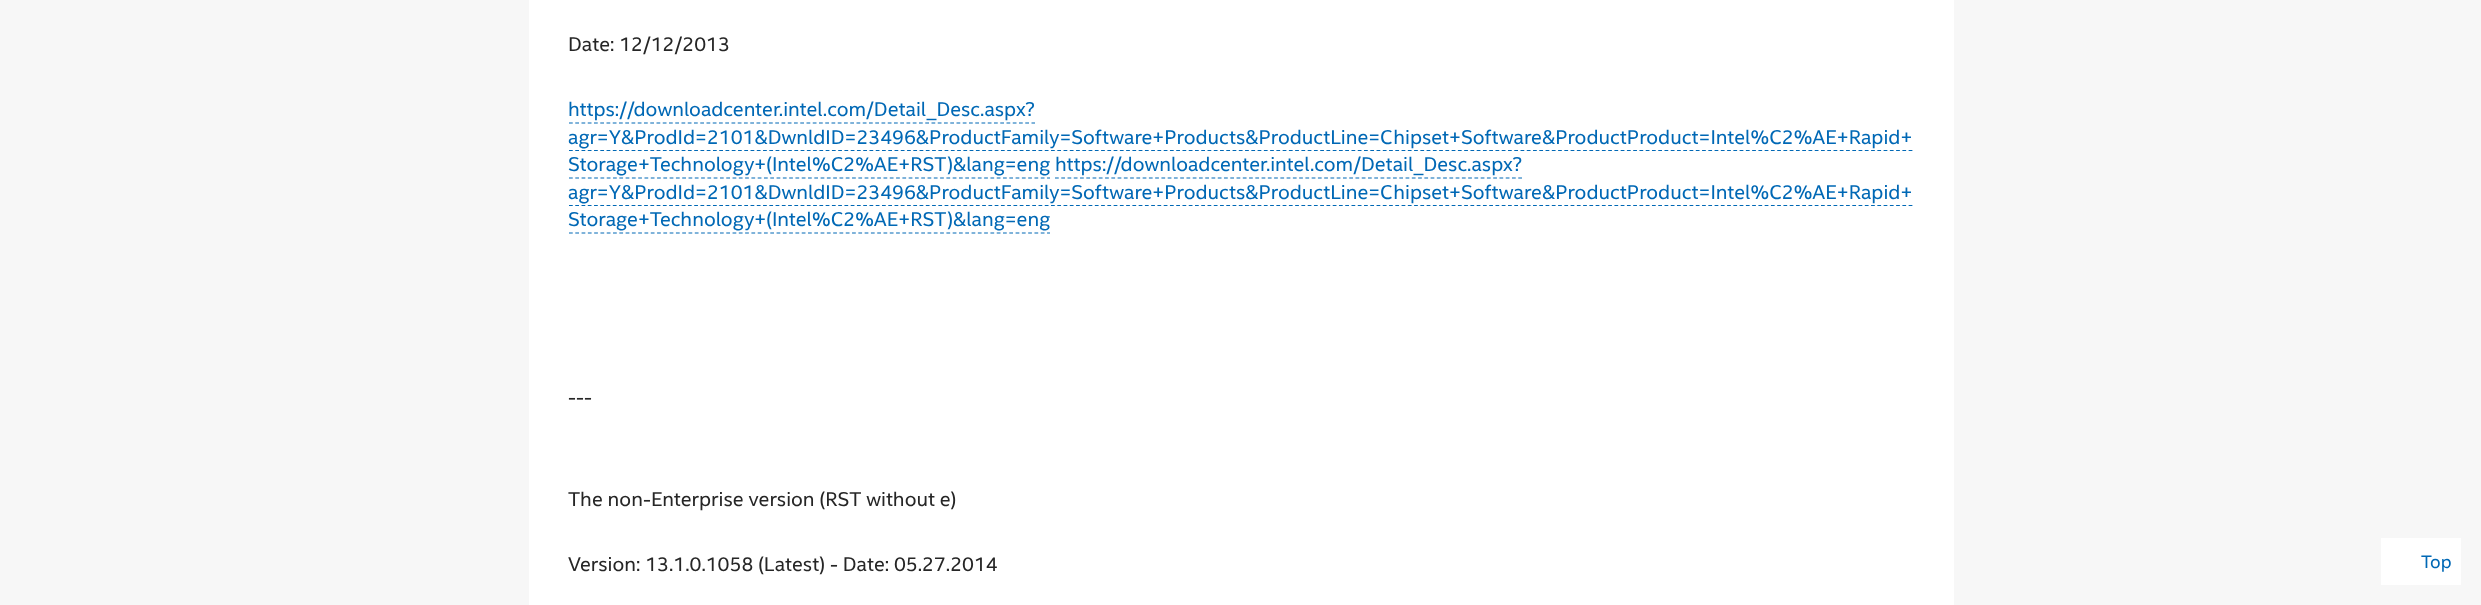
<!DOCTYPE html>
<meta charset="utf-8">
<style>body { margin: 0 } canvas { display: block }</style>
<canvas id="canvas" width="2481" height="605"></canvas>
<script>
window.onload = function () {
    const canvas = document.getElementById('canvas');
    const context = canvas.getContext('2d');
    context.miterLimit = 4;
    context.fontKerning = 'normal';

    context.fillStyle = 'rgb(247, 247, 247)';
    context.fillRect(0, 0, 2481, 605);
    context.fillStyle = 'rgb(255, 255, 255)';
    context.fillRect(529, 0, 1425, 605);
    context.beginPath();
    context.moveTo(569, 123);
    context.lineTo(1035, 123);
    context.strokeStyle = 'rgb(0, 104, 181)';
    context.lineWidth = 1.2;
    context.setLineDash([3.75, 2.5]);
    context.stroke();
    context.beginPath();
    context.moveTo(569, 150.5);
    context.lineTo(1912.5, 150.5);
    context.setLineDash([3.75, 2.51]);
    context.stroke();
    context.beginPath();
    context.moveTo(569, 178);
    context.lineTo(1050, 178);
    context.setLineDash([3.75, 2.54]);
    context.stroke();
    context.beginPath();
    context.moveTo(1055, 178);
    context.lineTo(1522.5, 178);
    context.setLineDash([3.75, 2.51]);
    context.stroke();
    context.beginPath();
    context.moveTo(569, 205.5);
    context.lineTo(1912.5, 205.5);
    context.stroke();
    context.beginPath();
    context.moveTo(569, 233);
    context.lineTo(1050, 233);
    context.setLineDash([3.75, 2.54]);
    context.stroke();
    context.fillRect(2381, 538, 80, 47);
    context.font = '20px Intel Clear';
    context.fillStyle = 'rgb(38, 38, 38)';
    context.fillText('Date: 12/12/2013', 568, 51);
    context.fillStyle = 'rgb(0, 104, 181)';
    context.fillText('https://downloadcenter.intel.com/Detail_Desc.aspx?', 568, 116);
    context.fillText('agr=Y&ProdId=2101&DwnldID=23496&ProductFamily=Software+Products&ProductLine=Chipset+Software&ProductProduct=Intel%C2%AE+Rapid+', 568, 144);
    context.fillText('Storage+Technology+(Intel%C2%AE+RST)&lang=eng https://downloadcenter.intel.com/Detail_Desc.aspx?', 568, 171);
    context.fillText('agr=Y&ProdId=2101&DwnldID=23496&ProductFamily=Software+Products&ProductLine=Chipset+Software&ProductProduct=Intel%C2%AE+Rapid+', 568, 199);
    context.fillText('Storage+Technology+(Intel%C2%AE+RST)&lang=eng', 568, 226);
    context.fillStyle = 'rgb(38, 38, 38)';
    context.fillText('---', 568, 404);
    context.fillText('The non-Enterprise version (RST without e)', 568, 506);
    context.fillText('Version: 13.1.0.1058 (Latest) - Date: 05.27.2014', 568, 571);
    context.font = '18px Intel Clear';
    context.fillStyle = 'rgb(0, 104, 181)';
    context.fillText('Top', 2421, 568);
};
</script>
